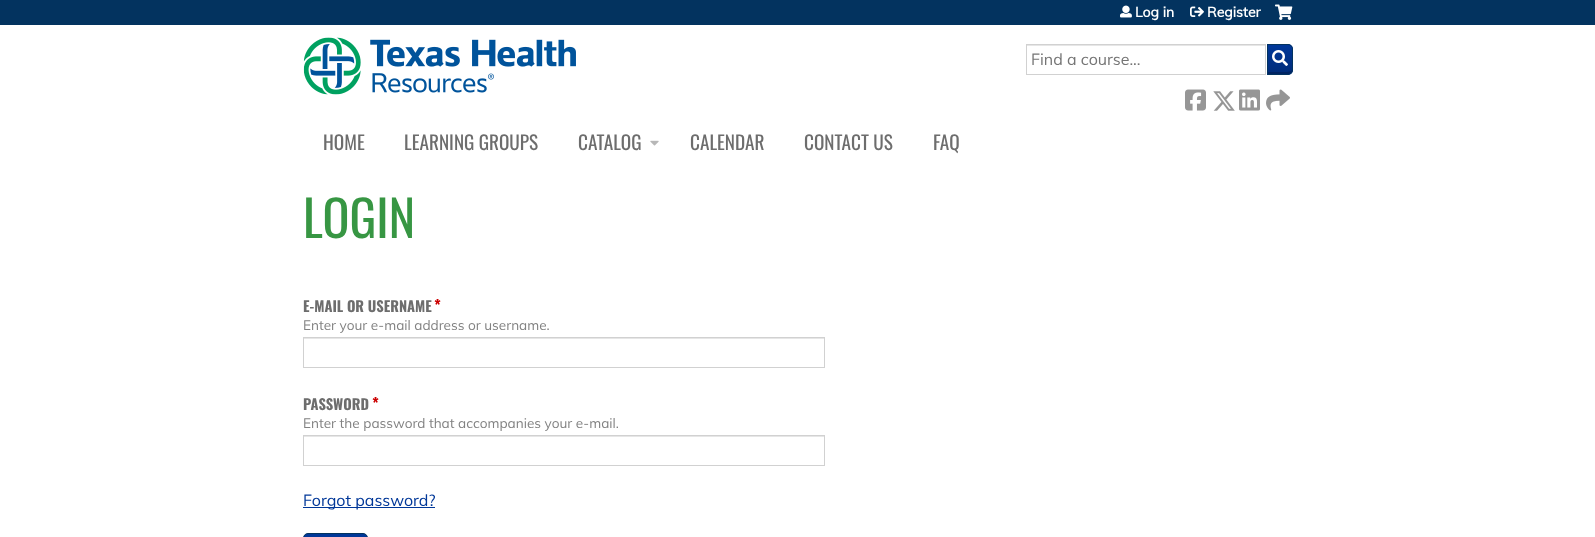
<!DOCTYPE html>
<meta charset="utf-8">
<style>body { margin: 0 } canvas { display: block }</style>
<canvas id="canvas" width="1595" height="537"></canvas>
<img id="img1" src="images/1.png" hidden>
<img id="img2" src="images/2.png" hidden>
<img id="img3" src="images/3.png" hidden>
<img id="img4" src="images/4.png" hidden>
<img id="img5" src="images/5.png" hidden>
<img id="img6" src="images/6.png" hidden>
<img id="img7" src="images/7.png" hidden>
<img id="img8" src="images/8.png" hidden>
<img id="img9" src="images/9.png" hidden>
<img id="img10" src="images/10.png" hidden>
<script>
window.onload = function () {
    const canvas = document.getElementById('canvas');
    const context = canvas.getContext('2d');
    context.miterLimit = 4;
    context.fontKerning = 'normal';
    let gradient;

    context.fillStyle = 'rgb(255, 255, 255)';
    context.fillRect(0, 0, 1595, 537);
    context.fillStyle = 'rgb(3, 51, 95)';
    context.fillRect(0, 0, 1595, 25);
    context.drawImage(document.getElementById('img1'), 303, 37, 273, 58);
    context.drawImage(document.getElementById('img2'), 1120, 5, 12, 13);
    context.drawImage(document.getElementById('img3'), 1190, 6, 14, 11);
    context.drawImage(document.getElementById('img4'), 1275, 4, 18, 16);
    context.fillStyle = 'rgb(0, 55, 152)';
    context.beginPath();
    context.roundRect(1267, 44, 26, 31, [0, 5, 5, 0]);
    context.fill();
    context.save();
    context.beginPath();
    context.roundRect(1267, 44, 26, 31, [0, 5, 5, 0]);
    context.clip();
    gradient = context.createLinearGradient(1280, 74, 1280, 45);
    gradient.addColorStop(0, 'rgba(0, 0, 0, 0.2)');
    gradient.addColorStop(1, 'rgba(0, 0, 0, 0)');
    context.fillStyle = gradient;
    context.fillRect(1268, 48, 25, 26);
    context.restore();
    context.fillStyle = 'rgb(0, 36, 98)';
    context.beginPath();
    context.moveTo(1268, 72);
    context.lineTo(1268, 74);
    context.lineTo(1288, 74);
    context.bezierCurveTo(1290, 74, 1292, 72, 1292, 70);
    context.bezierCurveTo(1291, 71.5, 1288.5, 72, 1285, 72);
    context.closePath();
    context.fill();
    context.beginPath();
    context.roundRect(1267.5, 44.5, 25, 30, [0, 4.5, 4.5, 0]);
    context.strokeStyle = 'rgb(3, 51, 95)';
    context.stroke();
    context.fillStyle = 'rgb(230, 230, 230)';
    context.fillRect(1027, 45, 238, 1);
    context.strokeStyle = 'rgb(209, 209, 209)';
    context.strokeRect(1026.5, 44.5, 239, 30);
    context.drawImage(document.getElementById('img5'), 1272, 50, 16, 16);
    context.drawImage(document.getElementById('img6'), 1185, 89, 21, 22);
    context.drawImage(document.getElementById('img7'), 1213, 91, 22, 20);
    context.drawImage(document.getElementById('img8'), 1239, 89, 21, 22);
    context.drawImage(document.getElementById('img9'), 1266, 89, 24, 22);
    context.drawImage(document.getElementById('img10'), 650, 140, 9, 6);
    context.fillRect(304, 338, 520, 1);
    context.strokeRect(303.5, 337.5, 521, 30);
    context.fillRect(304, 436, 520, 1);
    context.strokeRect(303.5, 435.5, 521, 30);
    context.fillStyle = 'rgb(0, 55, 152)';
    context.fillRect(303, 507, 132, 1);
    context.beginPath();
    context.roundRect(303.5, 533.5, 64, 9, 4.5);
    context.fill();
    context.strokeStyle = 'rgb(3, 51, 95)';
    context.stroke();
    context.font = 'bold 14px Muli';
    context.fillStyle = 'rgb(255, 255, 255)';
    context.fillText('Log in', 1135, 17);
    context.fillText('Register', 1207, 17);
    context.font = '16px Muli';
    context.fillStyle = 'rgb(117, 117, 117)';
    context.fillText('Find a course...', 1031, 65);
    context.font = '19.25px Oswald';
    context.fillStyle = 'rgb(109, 109, 109)';
    context.fillText('HOME', 323, 150);
    context.fillText('LEARNING GROUPS', 404, 150);
    context.fillText('CATALOG', 578, 150);
    context.fillText('CALENDAR', 690, 150);
    context.fillText('CONTACT US', 804, 150);
    context.fillText('FAQ', 933, 150);
    context.font = '50px Oswald';
    context.fillStyle = 'rgb(55, 150, 67)';
    context.fillText('LOGIN', 303, 238);
    context.font = 'bold 14.5px Oswald';
    context.fillStyle = 'rgb(109, 109, 109)';
    context.fillText('E-MAIL OR USERNAME', 303, 312);
    context.font = 'bold 16px Oswald';
    context.fillStyle = 'rgb(204, 0, 0)';
    context.fillText('*', 434, 312);
    context.font = '13.6px Muli';
    context.fillStyle = 'rgb(130, 130, 130)';
    context.fillText('Enter your e-mail address or username.', 303, 330);
    context.font = 'bold 14.5px Oswald';
    context.fillStyle = 'rgb(109, 109, 109)';
    context.fillText('PASSWORD', 303, 410);
    context.font = 'bold 16px Oswald';
    context.fillStyle = 'rgb(204, 0, 0)';
    context.fillText('*', 372, 410);
    context.font = '13.6px Muli';
    context.fillStyle = 'rgb(130, 130, 130)';
    context.fillText('Enter the password that accompanies your e-mail.', 303, 428);
    context.font = '16px Muli';
    context.fillStyle = 'rgb(0, 55, 152)';
    context.fillText('Forgot password?', 303, 506);
};
</script>
